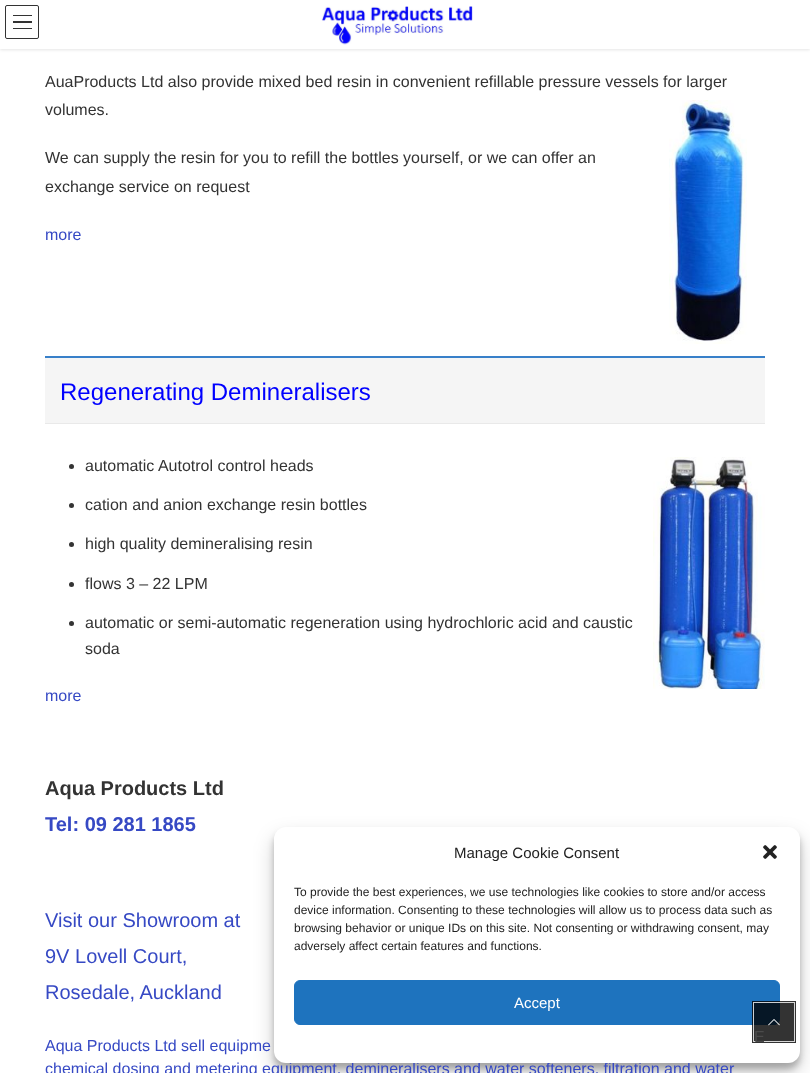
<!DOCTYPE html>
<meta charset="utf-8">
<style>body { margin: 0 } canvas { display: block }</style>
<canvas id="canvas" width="810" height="1073"></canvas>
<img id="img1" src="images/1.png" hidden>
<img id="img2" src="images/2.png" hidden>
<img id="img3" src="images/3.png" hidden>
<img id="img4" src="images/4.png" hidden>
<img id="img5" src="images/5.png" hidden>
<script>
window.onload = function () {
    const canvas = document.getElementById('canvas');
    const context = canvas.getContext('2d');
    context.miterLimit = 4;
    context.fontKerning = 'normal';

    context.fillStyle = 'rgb(255, 255, 255)';
    context.fillRect(0, 0, 810, 1073);
    context.fillStyle = 'rgba(0, 0, 0, 0.1)';
    context.filter = 'blur(1.5px)';
    context.beginPath();
    context.rect(0, 1, 810, 49);
    context.fill();
    context.filter = 'none';
    context.fillStyle = 'rgb(255, 255, 255)';
    context.fillRect(0, 0, 810, 49);
    context.drawImage(document.getElementById('img1'), 321, 6, 152, 39);
    context.fillStyle = 'rgb(51, 51, 51)';
    context.fillRect(13, 15, 19, 1);
    context.fillRect(13, 21, 19, 2);
    context.fillRect(13, 28, 19, 1);
    context.beginPath();
    context.roundRect(5.5, 5.5, 33, 33, 1.5);
    context.strokeStyle = 'rgb(51, 51, 51)';
    context.stroke();
    context.drawImage(document.getElementById('img2'), 669, 100, 78, 244);
    context.fillStyle = 'rgb(245, 245, 245)';
    context.fillRect(45, 358, 720, 65);
    context.fillStyle = 'rgb(56, 128, 201)';
    context.fillRect(45, 356, 720, 2);
    context.fillStyle = 'rgb(233, 233, 233)';
    context.fillRect(45, 423, 720, 1);
    context.fillStyle = 'rgb(51, 51, 51)';
    context.beginPath();
    context.arc(71.5, 466.5, 2.5, 0, 2 * Math.PI);
    context.fill();
    context.drawImage(document.getElementById('img3'), 653, 457, 112, 232);
    context.beginPath();
    context.arc(71.5, 505.5, 2.5, 0, 2 * Math.PI);
    context.fill();
    context.beginPath();
    context.arc(71.5, 544.5, 2.5, 0, 2 * Math.PI);
    context.fill();
    context.beginPath();
    context.arc(71.5, 584.5, 2.5, 0, 2 * Math.PI);
    context.fill();
    context.beginPath();
    context.arc(71.5, 623.5, 2.5, 0, 2 * Math.PI);
    context.fill();
    context.fillStyle = 'rgba(0, 0, 0, 0.23)';
    context.filter = 'blur(3px)';
    context.beginPath();
    context.roundRect(274, 833, 526, 236, 12);
    context.fill();
    context.filter = 'none';
    context.fillStyle = 'rgba(0, 0, 0, 0.19)';
    context.filter = 'blur(10px)';
    context.beginPath();
    context.roundRect(274, 837, 526, 236, 12);
    context.fill();
    context.filter = 'none';
    context.font = '16px Liberation Sans';
    context.fillStyle = 'rgb(51, 51, 51)';
    context.fillText('AuaProducts Ltd also provide mixed bed resin in convenient refillable pressure vessels for larger', 45, 87);
    context.fillText('volumes.', 45, 115);
    context.fillText('We can supply the resin for you to refill the bottles yourself, or we can offer an', 45, 163);
    context.fillText('exchange service on request', 45, 192);
    context.fillStyle = 'rgb(54, 73, 196)';
    context.fillText('more', 45, 240);
    context.font = '24px Liberation Sans';
    context.fillStyle = 'rgb(0, 0, 255)';
    context.fillText('Regenerating Demineralisers', 60, 400);
    context.font = '16px Liberation Sans';
    context.fillStyle = 'rgb(51, 51, 51)';
    context.fillText('automatic Autotrol control heads', 85, 471);
    context.fillText('cation and anion exchange resin bottles', 85, 510);
    context.fillText('high quality demineralising resin', 85, 549);
    context.fillText('flows 3 – 22 LPM', 85, 589);
    context.fillText('automatic or semi-automatic regeneration using hydrochloric acid and caustic', 85, 628);
    context.fillText('soda', 85, 654);
    context.fillStyle = 'rgb(54, 73, 196)';
    context.fillText('more', 45, 701);
    context.font = 'bold 20px Liberation Sans';
    context.fillStyle = 'rgb(51, 51, 51)';
    context.fillText('Aqua Products Ltd', 45, 795);
    context.fillStyle = 'rgb(54, 73, 196)';
    context.fillText('Tel: 09 281 1865', 45, 831);
    context.font = '20px Liberation Sans';
    context.fillText('Visit our Showroom at', 45, 927);
    context.fillText('9V Lovell Court,', 45, 963);
    context.fillText('Rosedale, Auckland', 45, 999);
    context.font = '16px Liberation Sans';
    context.fillText('Aqua Products Ltd sell equipme', 45, 1051);
    context.fillText('chemical dosing and metering equipment, demineralisers and water softeners, filtration and water', 45, 1074);
    context.fillStyle = 'rgb(255, 255, 255)';
    context.beginPath();
    context.roundRect(274, 827, 526, 236, 12);
    context.fill();
    context.font = '15px Liberation Sans';
    context.fillStyle = 'rgb(34, 34, 34)';
    context.fillText('Manage Cookie Consent', 454, 858);
    context.drawImage(document.getElementById('img4'), 763, 845, 14, 14);
    context.font = '12px Liberation Sans';
    context.fillText('To provide the best experiences, we use technologies like cookies to store and/or access', 294, 896);
    context.fillText('device information. Consenting to these technologies will allow us to process data such as', 294, 914);
    context.fillText('browsing behavior or unique IDs on this site. Not consenting or withdrawing consent, may', 294, 932);
    context.fillText('adversely affect certain features and functions.', 294, 950);
    context.fillStyle = 'rgb(30, 115, 190)';
    context.beginPath();
    context.roundRect(294.5, 980.5, 485, 44, 5.5);
    context.fill();
    context.strokeStyle = 'rgb(30, 115, 190)';
    context.stroke();
    context.font = '15px Liberation Sans';
    context.fillStyle = 'rgb(255, 255, 255)';
    context.fillText('Accept', 514, 1008);
    context.strokeStyle = 'rgba(0, 0, 0, 0.8)';
    context.lineWidth = 2;
    context.strokeRect(753, 1002, 42, 40);
    context.strokeStyle = 'rgba(255, 255, 255, 0.8)';
    context.lineWidth = 1;
    context.strokeRect(753.5, 1002.5, 41, 39);
    context.fillStyle = 'rgba(0, 0, 0, 0.8)';
    context.fillRect(754, 1003, 40, 38);
    context.drawImage(document.getElementById('img5'), 768, 1019, 12, 7);
    context.font = '16px Liberation Sans';
    context.fillStyle = 'rgb(75, 75, 75)';
    context.fillText('E', 754, 1042);
};
</script>
